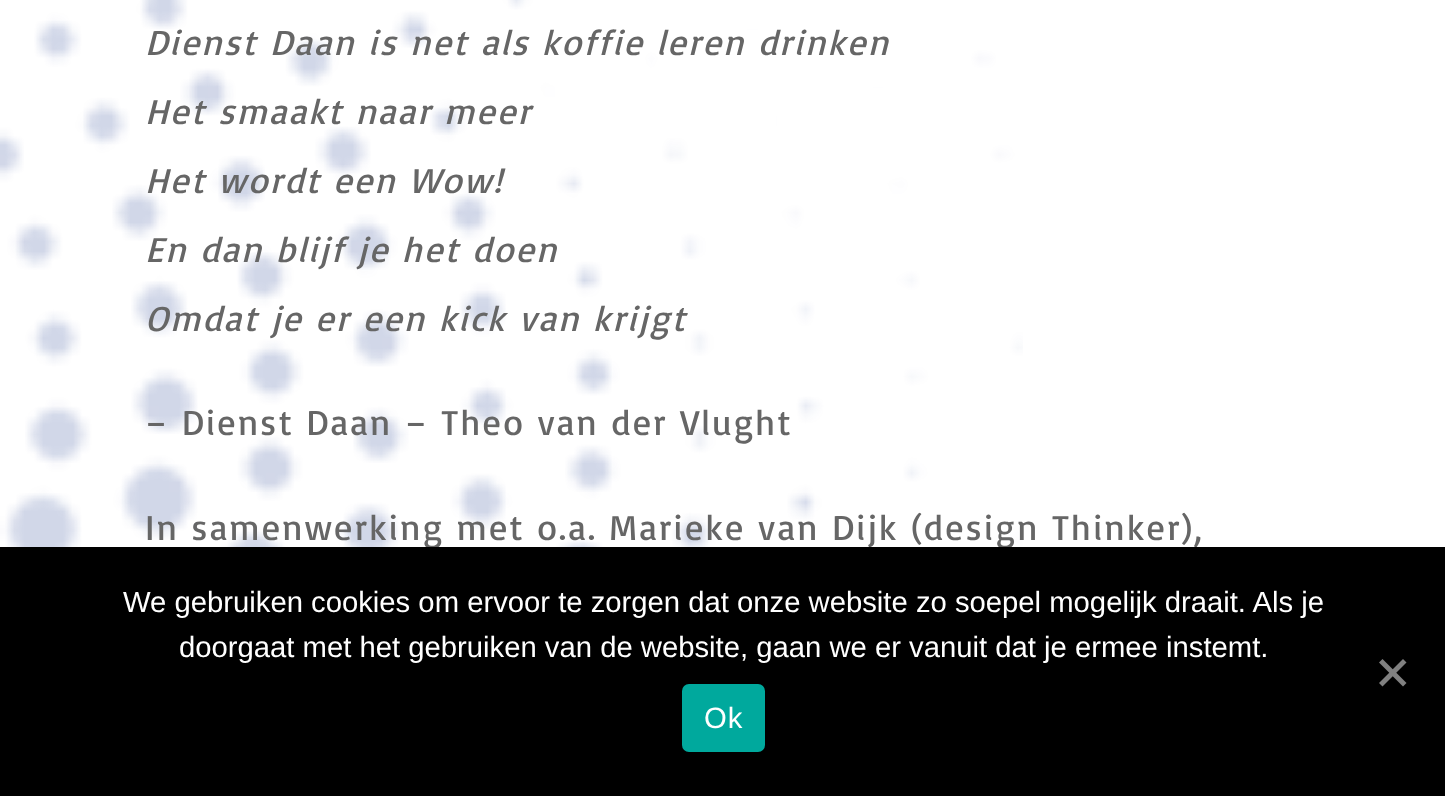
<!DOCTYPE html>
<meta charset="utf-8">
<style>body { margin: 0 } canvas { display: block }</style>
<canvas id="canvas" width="1445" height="796"></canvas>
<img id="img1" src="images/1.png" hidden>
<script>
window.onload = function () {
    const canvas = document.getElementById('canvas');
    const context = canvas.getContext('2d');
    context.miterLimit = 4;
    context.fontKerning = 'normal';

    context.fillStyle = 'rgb(255, 255, 255)';
    context.fillRect(0, 0, 1445, 796);
    context.drawImage(document.getElementById('img1'), 0, 0, 1023, 547);
    context.letterSpacing = '2.25px';
    context.font = 'italic 36px Basic';
    context.fillStyle = 'rgb(102, 102, 102)';
    context.fillText('Dienst Daan is net als koffie leren drinken', 145, 55);
    context.fillText('Het smaakt naar meer', 145, 124);
    context.fillText('Het wordt een Wow!', 145, 193);
    context.fillText('En dan blijf je het doen', 145, 262);
    context.fillText('Omdat je er een kick van krijgt', 145, 331);
    context.font = '36px Basic';
    context.fillText('– Dienst Daan – Theo van der Vlught', 145, 435);
    context.fillText('In samenwerking met o.a. Marieke van Dijk (design Thinker),', 145, 540);
    context.fillStyle = 'rgb(0, 0, 0)';
    context.fillRect(0, 547, 1445, 249);
    context.letterSpacing = '0px';
    context.font = '29.25px Liberation Sans';
    context.fillStyle = 'rgb(255, 255, 255)';
    context.fillText('We gebruiken cookies om ervoor te zorgen dat onze website zo soepel mogelijk draait. Als je', 123, 612);
    context.fillText('doorgaat met het gebruiken van de website, gaan we er vanuit dat je ermee instemt.', 179, 657);
    context.fillStyle = 'rgb(128, 128, 128)';
    context.beginPath();
    context.moveTo(1403, 659);
    context.lineTo(1406.5, 662.5);
    context.lineTo(1382.5, 686.5);
    context.lineTo(1379, 683);
    context.closePath();
    context.fill();
    context.beginPath();
    context.moveTo(1379, 662.5);
    context.lineTo(1382.5, 659);
    context.lineTo(1406.5, 683);
    context.lineTo(1403, 686.5);
    context.closePath();
    context.fill();
    context.fillStyle = 'rgb(0, 169, 157)';
    context.beginPath();
    context.roundRect(682, 684, 83, 68, 7);
    context.fill();
    context.letterSpacing = '1px';
    context.fillStyle = 'rgb(255, 255, 255)';
    context.fillText('Ok', 704, 728);
};
</script>
